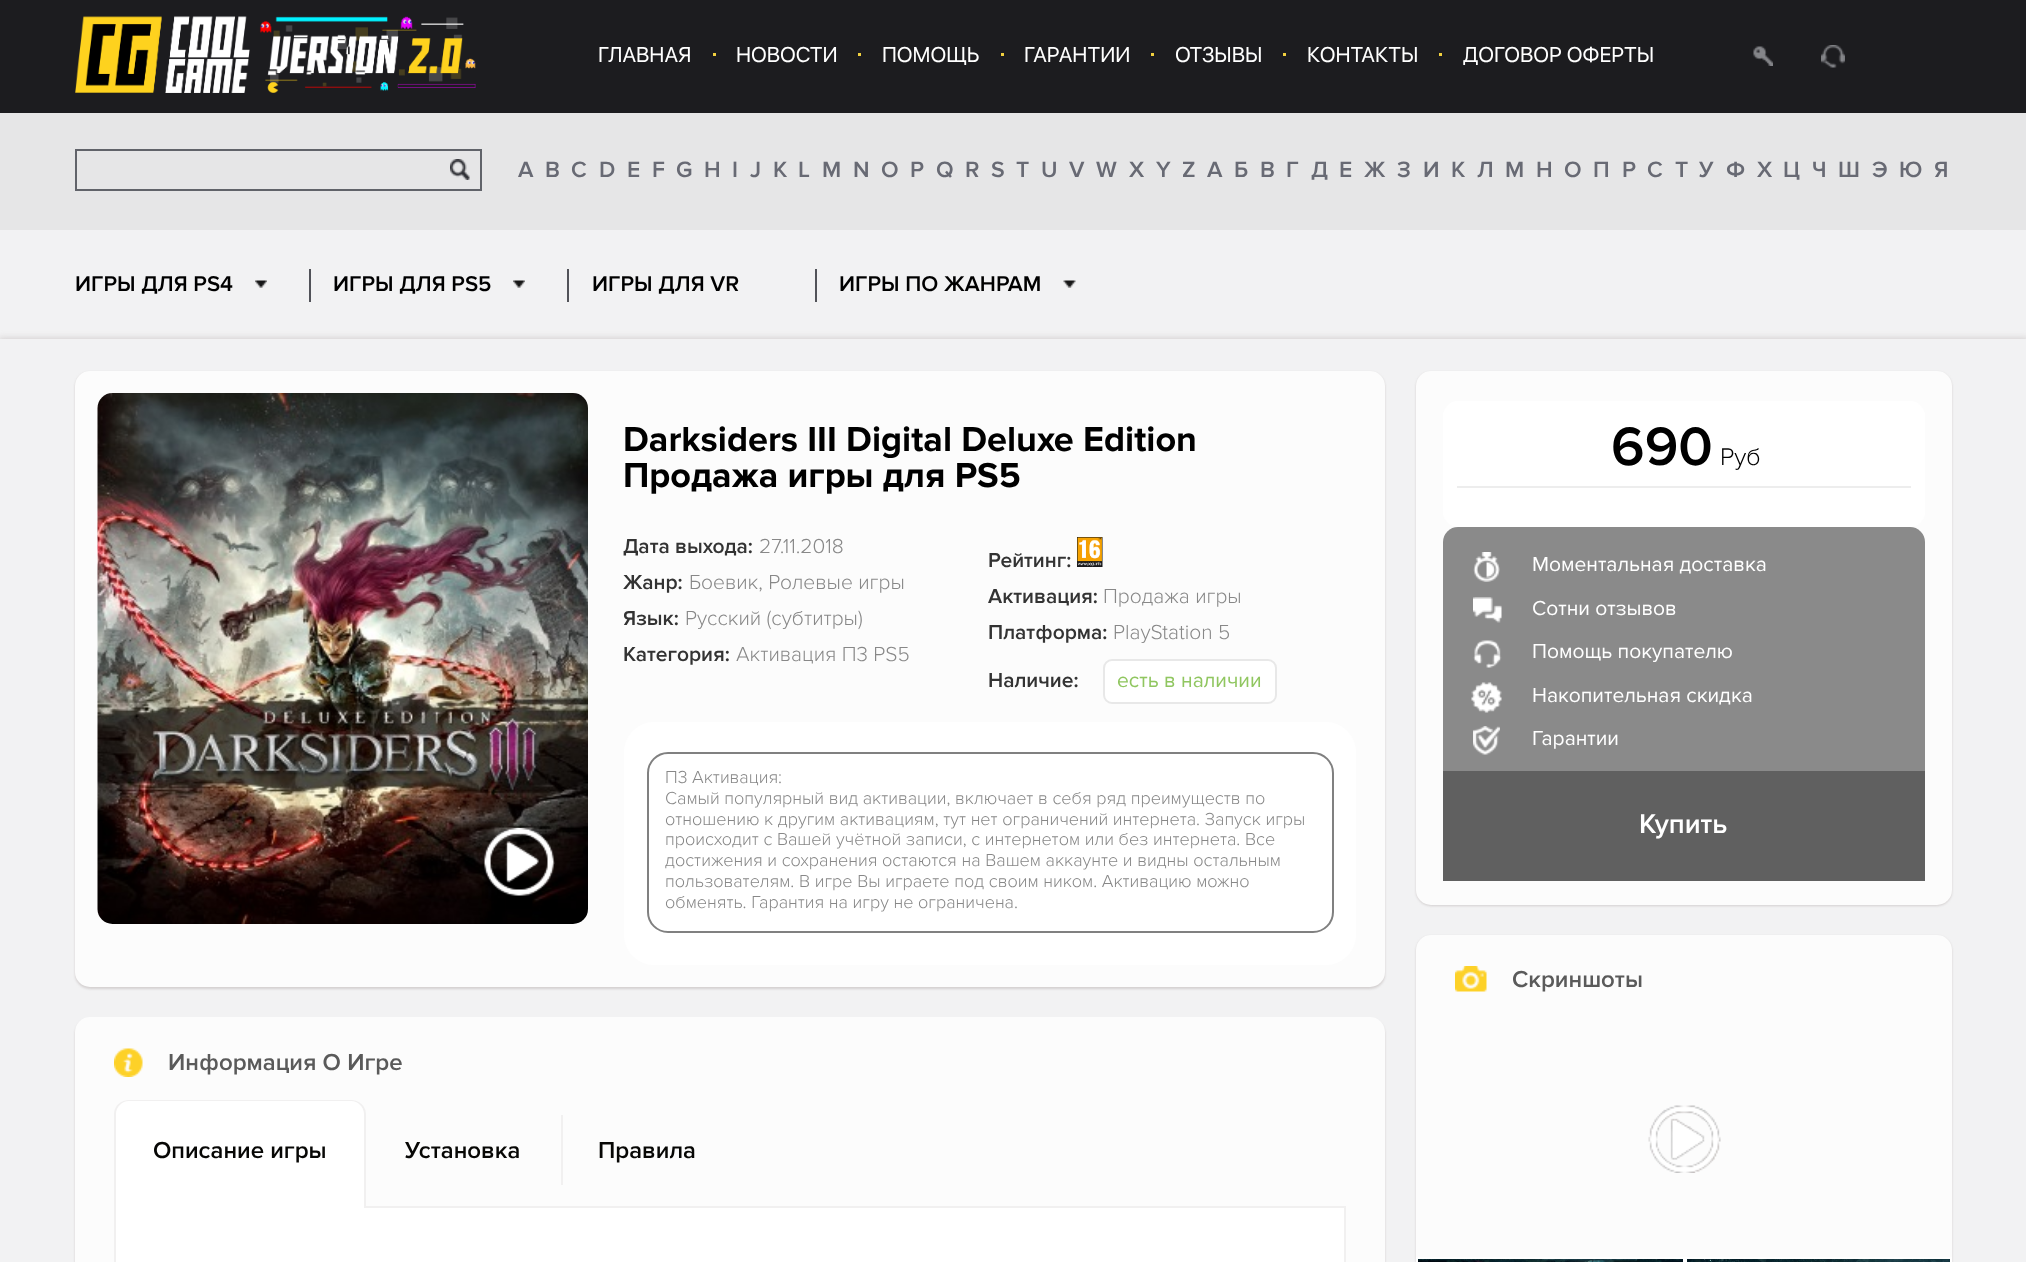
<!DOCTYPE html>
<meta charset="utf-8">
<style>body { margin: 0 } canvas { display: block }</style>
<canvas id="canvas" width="2026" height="1262"></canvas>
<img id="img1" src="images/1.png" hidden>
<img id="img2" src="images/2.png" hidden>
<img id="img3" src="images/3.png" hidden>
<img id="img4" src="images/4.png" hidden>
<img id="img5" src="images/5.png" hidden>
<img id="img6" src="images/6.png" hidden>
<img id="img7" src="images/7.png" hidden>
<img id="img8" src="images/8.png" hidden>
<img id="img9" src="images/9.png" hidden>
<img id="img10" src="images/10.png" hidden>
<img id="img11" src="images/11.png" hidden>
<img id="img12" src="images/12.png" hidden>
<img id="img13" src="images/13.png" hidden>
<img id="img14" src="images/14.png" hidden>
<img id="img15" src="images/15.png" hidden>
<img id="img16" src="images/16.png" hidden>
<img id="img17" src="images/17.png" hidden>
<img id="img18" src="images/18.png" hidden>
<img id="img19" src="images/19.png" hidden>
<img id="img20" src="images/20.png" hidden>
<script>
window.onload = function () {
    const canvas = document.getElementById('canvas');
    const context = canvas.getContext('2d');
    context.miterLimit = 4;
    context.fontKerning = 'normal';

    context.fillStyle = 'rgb(242, 242, 243)';
    context.fillRect(0, 0, 2026, 1262);
    context.fillStyle = 'rgb(28, 28, 31)';
    context.fillRect(0, 0, 2026, 113);
    context.drawImage(document.getElementById('img1'), 75, 16, 401, 77);
    context.fillStyle = 'rgb(241, 208, 63)';
    context.fillRect(713, 53, 3, 3);
    context.fillRect(858, 53, 3, 3);
    context.fillRect(1001, 53, 3, 3);
    context.fillRect(1151, 53, 3, 3);
    context.fillRect(1283, 53, 3, 3);
    context.fillRect(1439, 53, 3, 3);
    context.drawImage(document.getElementById('img2'), 1753, 46, 20, 20);
    context.drawImage(document.getElementById('img3'), 1821, 45, 24, 23);
    context.fillStyle = 'rgb(230, 230, 231)';
    context.fillRect(0, 113, 2026, 117);
    context.strokeStyle = 'rgb(97, 99, 106)';
    context.lineWidth = 2;
    context.strokeRect(76, 150, 405, 40);
    context.drawImage(document.getElementById('img4'), 450, 159, 20, 21);
    context.drawImage(document.getElementById('img5'), 255, 280, 12, 8);
    context.fillStyle = 'rgb(82, 83, 89)';
    context.fillRect(309, 269, 2, 33);
    context.drawImage(document.getElementById('img6'), 513, 280, 12, 8);
    context.fillRect(567, 269, 2, 33);
    context.fillRect(815, 269, 2, 33);
    context.drawImage(document.getElementById('img7'), 1063, 280, 13, 8);
    context.fillStyle = 'rgba(200, 195, 195, 0.73)';
    context.filter = 'blur(3px)';
    context.beginPath();
    context.rect(-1, 338, 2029, 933);
    context.fill();
    context.filter = 'none';
    context.fillStyle = 'rgb(242, 242, 243)';
    context.fillRect(0, 339, 2026, 923);
    context.fillStyle = 'rgba(200, 195, 195, 0.73)';
    context.filter = 'blur(1px)';
    context.beginPath();
    context.roundRect(75, 372, 1310, 617, 15);
    context.fill();
    context.filter = 'none';
    context.fillStyle = 'rgb(252, 252, 252)';
    context.beginPath();
    context.roundRect(75, 371, 1310, 616, 15);
    context.fill();
    context.drawImage(document.getElementById('img8'), 97, 393, 491, 531);
    context.drawImage(document.getElementById('img9'), 483, 828, 72, 68);
    context.drawImage(document.getElementById('img10'), 1077, 537, 26, 30);
    context.fillStyle = 'rgb(255, 255, 255)';
    context.beginPath();
    context.roundRect(1104, 660, 172, 43, 8);
    context.fill();
    context.strokeStyle = 'rgb(232, 232, 232)';
    context.stroke();
    context.beginPath();
    context.roundRect(624, 722, 732, 243, 30);
    context.fill();
    context.beginPath();
    context.roundRect(648, 753, 685, 179, 20);
    context.strokeStyle = 'rgb(128, 128, 128)';
    context.stroke();
    context.fillStyle = 'rgba(200, 195, 195, 0.73)';
    context.filter = 'blur(1px)';
    context.beginPath();
    context.roundRect(75, 1019, 1310, 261, 15);
    context.fill();
    context.filter = 'none';
    context.fillStyle = 'rgb(252, 252, 252)';
    context.beginPath();
    context.roundRect(75, 1017, 1310, 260, 15);
    context.fill();
    context.drawImage(document.getElementById('img11'), 114, 1048, 29, 29);
    context.fillStyle = 'rgb(255, 255, 255)';
    context.beginPath();
    context.rect(115, 1207, 1230, 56);
    context.fill();
    context.strokeStyle = 'rgb(241, 240, 240)';
    context.stroke();
    context.beginPath();
    context.roundRect(114, 1100, 252, 108, [15, 15, 0, 0]);
    context.fill();
    context.fillStyle = 'rgb(241, 240, 240)';
    context.beginPath();
    context.moveTo(129, 1100);
    context.lineTo(351, 1100);
    context.bezierCurveTo(359, 1100, 366, 1106, 366, 1114);
    context.lineTo(366, 1208);
    context.lineTo(114, 1208);
    context.lineTo(114, 1114);
    context.bezierCurveTo(114, 1106, 121, 1100, 129, 1100);
    context.closePath();
    context.moveTo(129, 1101);
    context.lineTo(351, 1101);
    context.bezierCurveTo(358, 1101, 364, 1107, 364, 1114);
    context.lineTo(364, 1208);
    context.lineTo(116, 1208);
    context.lineTo(116, 1114);
    context.bezierCurveTo(116, 1107, 122, 1101, 129, 1101);
    context.closePath();
    context.fill('evenodd');
    context.fillRect(561, 1115, 2, 70);
    context.fillStyle = 'rgba(200, 195, 195, 0.73)';
    context.filter = 'blur(1px)';
    context.beginPath();
    context.roundRect(1416, 372, 536, 534, 15);
    context.fill();
    context.filter = 'none';
    context.fillStyle = 'rgb(252, 252, 252)';
    context.beginPath();
    context.roundRect(1416, 371, 536, 534, 15);
    context.fill();
    context.fillStyle = 'rgb(255, 255, 255)';
    context.beginPath();
    context.roundRect(1443, 401, 482, 126, 15);
    context.fill();
    context.fillStyle = 'rgb(237, 237, 237)';
    context.fillRect(1457, 486, 454, 2);
    context.fillStyle = 'rgb(138, 138, 138)';
    context.beginPath();
    context.roundRect(1443, 527, 482, 244, [15, 15, 0, 0]);
    context.fill();
    context.drawImage(document.getElementById('img12'), 1473, 552, 27, 30);
    context.drawImage(document.getElementById('img13'), 1473, 597, 29, 26);
    context.drawImage(document.getElementById('img14'), 1473, 640, 29, 28);
    context.drawImage(document.getElementById('img15'), 1471, 682, 31, 31);
    context.drawImage(document.getElementById('img16'), 1473, 726, 27, 29);
    context.fillStyle = 'rgb(96, 96, 96)';
    context.fillRect(1443, 771, 482, 110);
    context.fillStyle = 'rgba(200, 195, 195, 0.73)';
    context.filter = 'blur(1px)';
    context.beginPath();
    context.roundRect(1416, 936, 536, 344, 15);
    context.fill();
    context.filter = 'none';
    context.fillStyle = 'rgb(252, 252, 252)';
    context.beginPath();
    context.roundRect(1416, 935, 536, 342, 15);
    context.fill();
    context.drawImage(document.getElementById('img17'), 1455, 966, 32, 26);
    context.drawImage(document.getElementById('img18'), 1648, 1105, 73, 68);
    context.drawImage(document.getElementById('img19'), 1418, 1259, 265, 3);
    context.fillStyle = 'rgb(255, 255, 255)';
    context.fillRect(1416, 1257, 536, 2);
    context.fillRect(1683, 1257, 4, 5);
    context.fillRect(1416, 1257, 2, 5);
    context.drawImage(document.getElementById('img20'), 1687, 1259, 263, 3);
    context.fillRect(1950, 1257, 2, 5);
    context.font = '21.25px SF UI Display';
    context.fillText('ГЛАВНАЯ', 598, 62);
    context.fillText('НОВОСТИ', 736, 62);
    context.fillText('ПОМОЩЬ', 882, 62);
    context.fillText('ГАРАНТИИ', 1024, 62);
    context.fillText('ОТЗЫВЫ', 1175, 62);
    context.fillText('КОНТАКТЫ', 1307, 62);
    context.fillText('ДОГОВОР ОФЕРТЫ', 1463, 62);
    context.font = '600 23px Proxima Nova';
    context.fillStyle = 'rgb(104, 106, 116)';
    context.fillText('A', 518, 177);
    context.fillText('B', 545, 177);
    context.fillText('C', 571, 177);
    context.fillText('D', 599, 177);
    context.fillText('E', 627, 177);
    context.fillText('F', 652, 177);
    context.fillText('G', 676, 177);
    context.fillText('H', 704, 177);
    context.fillText('I', 732, 177);
    context.fillText('J', 750, 177);
    context.fillText('K', 773, 177);
    context.fillText('L', 798, 177);
    context.fillText('M', 822, 177);
    context.fillText('N', 853, 177);
    context.fillText('O', 881, 177);
    context.fillText('P', 910, 177);
    context.fillText('Q', 936, 177);
    context.fillText('R', 965, 177);
    context.fillText('S', 991, 177);
    context.fillText('T', 1016, 177);
    context.fillText('U', 1041, 177);
    context.fillText('V', 1069, 177);
    context.fillText('W', 1096, 177);
    context.fillText('X', 1129, 177);
    context.fillText('Y', 1156, 177);
    context.fillText('Z', 1182, 177);
    context.fillText('А', 1207, 177);
    context.fillText('Б', 1234, 177);
    context.fillText('В', 1260, 177);
    context.fillText('Г', 1286, 177);
    context.fillText('Д', 1311, 177);
    context.fillText('Е', 1339, 177);
    context.fillText('Ж', 1364, 177);
    context.fillText('З', 1397, 177);
    context.fillText('И', 1423, 177);
    context.fillText('К', 1451, 177);
    context.fillText('Л', 1477, 177);
    context.fillText('М', 1505, 177);
    context.fillText('Н', 1536, 177);
    context.fillText('О', 1564, 177);
    context.fillText('П', 1593, 177);
    context.fillText('Р', 1622, 177);
    context.fillText('С', 1647, 177);
    context.fillText('Т', 1675, 177);
    context.fillText('У', 1699, 177);
    context.fillText('Ф', 1726, 177);
    context.fillText('Х', 1757, 177);
    context.fillText('Ц', 1783, 177);
    context.fillText('Ч', 1812, 177);
    context.fillText('Ш', 1838, 177);
    context.fillText('Э', 1872, 177);
    context.fillText('Ю', 1899, 177);
    context.fillText('Я', 1934, 177);
    context.font = '600 22.25px Proxima Nova';
    context.fillStyle = 'rgb(0, 0, 0)';
    context.fillText('ИГРЫ ДЛЯ PS4', 75, 291);
    context.fillText('ИГРЫ ДЛЯ PS5', 333, 291);
    context.fillText('ИГРЫ ДЛЯ VR', 592, 291);
    context.fillText('ИГРЫ ПО ЖАНРАМ', 839, 291);
    context.font = 'bold 36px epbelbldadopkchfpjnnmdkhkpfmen';
    context.fillText('Darksiders III Digital Deluxe Edition', 623, 451);
    context.fillText('Продажа игры для PS5', 623, 487);
    context.font = '600 21px Proxima Nova';
    context.fillStyle = 'rgb(51, 51, 51)';
    context.fillText('Дата выхода:', 623, 553);
    context.font = '300 21px Proxima Nova';
    context.fillStyle = 'rgb(136, 136, 136)';
    context.fillText('27.11.2018', 759, 553);
    context.font = '600 21px Proxima Nova';
    context.fillStyle = 'rgb(51, 51, 51)';
    context.fillText('Жанр:', 623, 589);
    context.font = '300 21px Proxima Nova';
    context.fillStyle = 'rgb(136, 136, 136)';
    context.fillText('Боевик, Ролевые игры', 689, 589);
    context.font = '600 21px Proxima Nova';
    context.fillStyle = 'rgb(51, 51, 51)';
    context.fillText('Язык:', 623, 625);
    context.font = '300 21px Proxima Nova';
    context.fillStyle = 'rgb(136, 136, 136)';
    context.fillText('Русский (субтитры)', 685, 625);
    context.font = '600 21px Proxima Nova';
    context.fillStyle = 'rgb(51, 51, 51)';
    context.fillText('Категория:', 623, 661);
    context.font = '300 21px Proxima Nova';
    context.fillStyle = 'rgb(136, 136, 136)';
    context.fillText('Активация П3 PS5', 736, 661);
    context.font = '600 21px Proxima Nova';
    context.fillStyle = 'rgb(51, 51, 51)';
    context.fillText('Рейтинг:', 988, 567);
    context.fillText('Активация:', 988, 603);
    context.font = '300 21px Proxima Nova';
    context.fillStyle = 'rgb(136, 136, 136)';
    context.fillText('Продажа игры', 1103, 603);
    context.font = '600 21px Proxima Nova';
    context.fillStyle = 'rgb(51, 51, 51)';
    context.fillText('Платформа:', 988, 639);
    context.font = '300 21px Proxima Nova';
    context.fillStyle = 'rgb(136, 136, 136)';
    context.fillText('PlayStation 5', 1113, 639);
    context.font = '600 21px Proxima Nova';
    context.fillStyle = 'rgb(51, 51, 51)';
    context.fillText('Наличие:', 988, 687);
    context.font = '21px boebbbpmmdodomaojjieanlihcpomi';
    context.fillStyle = 'rgb(144, 198, 96)';
    context.fillText('есть в наличии', 1117, 687);
    context.font = '300 18px Proxima Nova';
    context.fillStyle = 'rgb(136, 136, 136)';
    context.fillText('П3 Активация:', 665, 783);
    context.fillText('Самый популярный вид активации, включает в себя ряд преимуществ по', 665, 804);
    context.fillText('отношению к другим активациям, тут нет ограничений интернета. Запуск игры', 665, 825);
    context.fillText('происходит с Вашей учётной записи, с интернетом или без интернета. Все', 665, 845);
    context.fillText('достижения и сохранения остаются на Вашем аккаунте и видны остальным', 665, 866);
    context.fillText('пользователям. В игре Вы играете под своим ником. Активацию можно', 665, 887);
    context.fillText('обменять. Гарантия на игру не ограничена.', 665, 908);
    context.font = '600 24px Proxima Nova';
    context.fillStyle = 'rgb(90, 90, 90)';
    context.fillText('Информация О Игре', 168, 1070);
    context.fillStyle = 'rgb(7, 7, 5)';
    context.fillText('Описание игры', 153, 1158);
    context.fillText('Установка', 405, 1158);
    context.fillText('Правила', 598, 1158);
    context.font = '600 56px Proxima Nova';
    context.fillStyle = 'rgb(0, 0, 0)';
    context.fillText('690', 1611, 465);
    context.font = '300 25px Proxima Nova';
    context.fillText('Руб', 1720, 465);
    context.font = '21px boebbbpmmdodomaojjieanlihcpomi';
    context.fillStyle = 'rgb(255, 255, 255)';
    context.fillText('Моментальная доставка', 1532, 571);
    context.fillText('Cотни отзывов', 1532, 615);
    context.fillText('Помощь покупателю', 1532, 658);
    context.fillText('Накопительная скидка', 1532, 702);
    context.fillText('Гарантии', 1532, 745);
    context.font = '600 28px Proxima Nova';
    context.fillText('Купить', 1639, 833);
    context.font = '600 24px Proxima Nova';
    context.fillStyle = 'rgb(90, 90, 90)';
    context.fillText('Скриншоты', 1512, 987);
};
</script>
